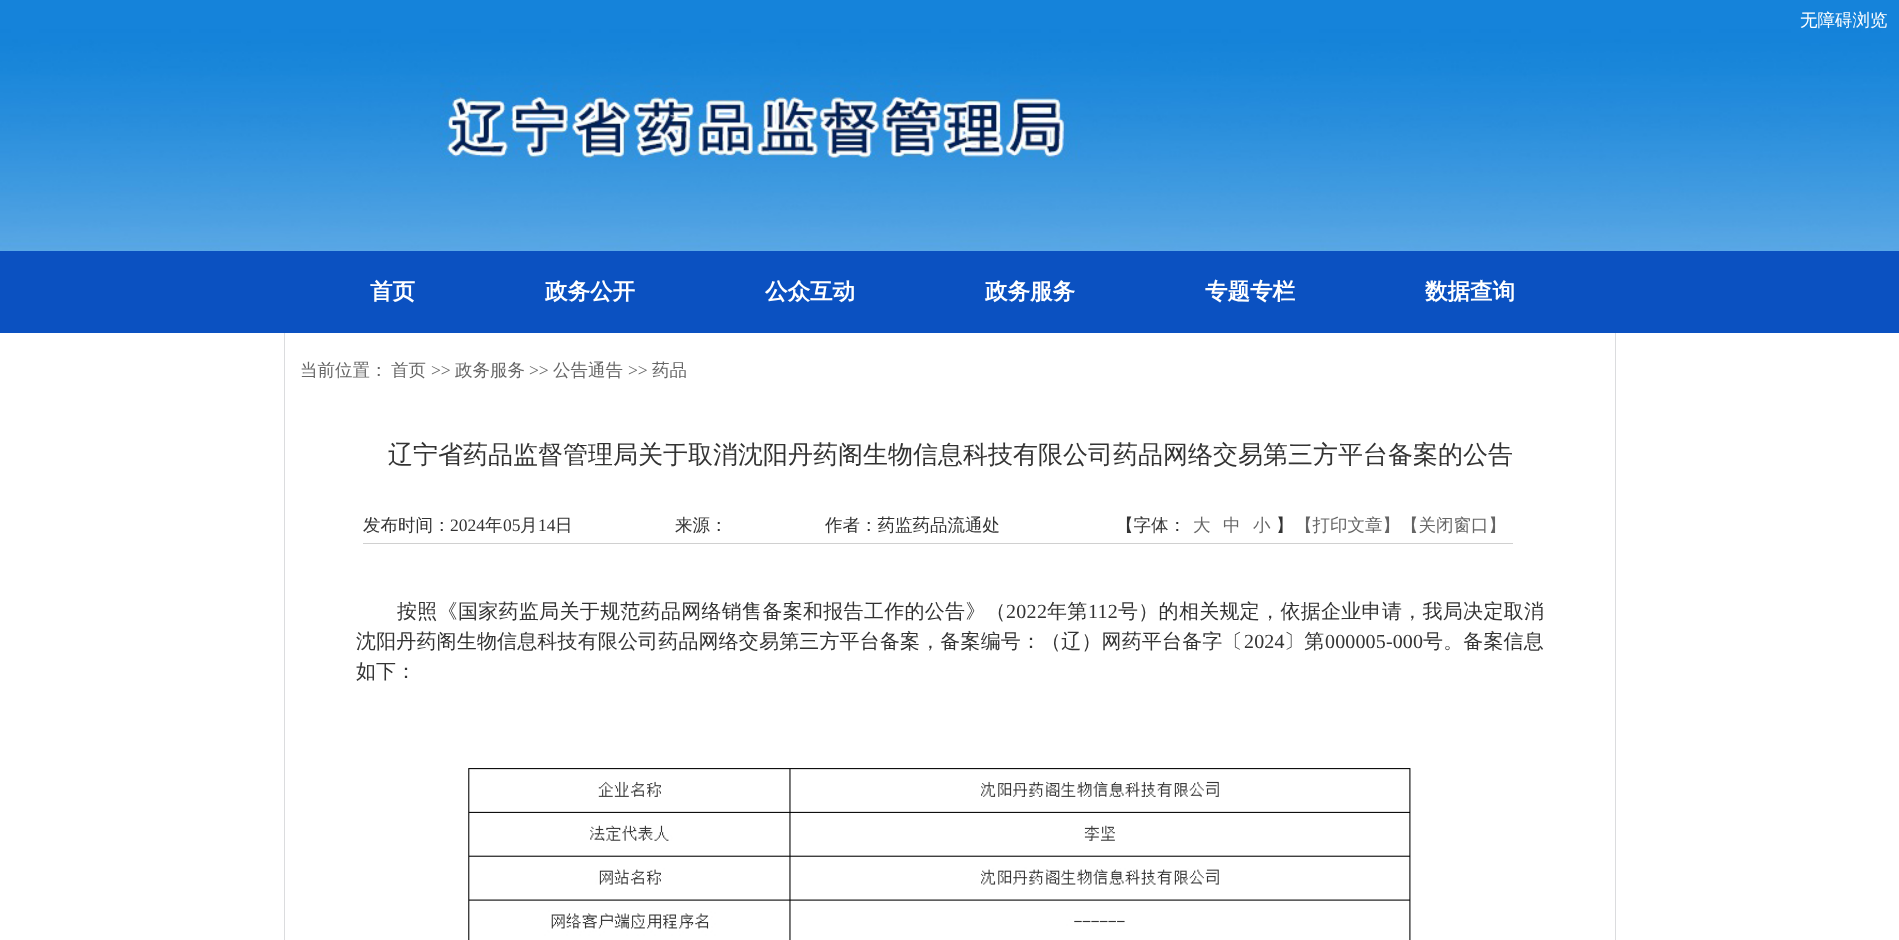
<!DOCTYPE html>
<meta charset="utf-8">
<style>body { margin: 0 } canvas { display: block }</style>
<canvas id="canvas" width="1899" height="940"></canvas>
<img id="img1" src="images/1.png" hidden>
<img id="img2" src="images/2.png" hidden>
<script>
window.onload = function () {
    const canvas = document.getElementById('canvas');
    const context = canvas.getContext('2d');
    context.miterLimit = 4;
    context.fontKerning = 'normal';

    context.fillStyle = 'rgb(255, 255, 255)';
    context.fillRect(0, 0, 1899, 940);
    context.fillStyle = 'rgb(89, 167, 231)';
    context.fillRect(0, 250, 1899, 1);
    context.drawImage(document.getElementById('img1'), 0, 0, 1899, 250);
    context.fillStyle = 'rgb(11, 81, 193)';
    context.fillRect(0, 251, 1899, 82);
    context.fillStyle = 'rgb(219, 220, 222)';
    context.fillRect(1615, 333, 1, 607);
    context.fillRect(284, 333, 1, 607);
    context.fillStyle = 'rgb(208, 208, 208)';
    context.fillRect(363, 543, 1150, 1);
    context.drawImage(document.getElementById('img2'), 468, 768, 943, 172);
    context.font = '500 17.5px WenQuanYi Zen Hei';
    context.fillStyle = 'rgb(255, 255, 255)';
    context.fillText('无障碍浏览', 1800, 26);
    context.font = 'bold 22.5px WenQuanYi Zen Hei';
    context.fillText('首页', 370, 299);
    context.fillText('政务公开', 545, 299);
    context.fillText('公众互动', 765, 299);
    context.fillText('政务服务', 985, 299);
    context.fillText('专题专栏', 1205, 299);
    context.fillText('数据查询', 1425, 299);
    context.font = '500 17.5px WenQuanYi Zen Hei';
    context.fillStyle = 'rgb(102, 102, 102)';
    context.fillText('当前位置：', 300, 376);
    context.fillText('首页', 391, 376);
    context.font = '17.5px Liberation Serif';
    context.fillText('>>', 431, 376);
    context.font = '500 17.5px WenQuanYi Zen Hei';
    context.fillText('政务服务', 455, 376);
    context.font = '17.5px Liberation Serif';
    context.fillText('>>', 529, 376);
    context.font = '500 17.5px WenQuanYi Zen Hei';
    context.fillText('公告通告', 553, 376);
    context.font = '17.5px Liberation Serif';
    context.fillText('>>', 628, 376);
    context.font = '500 17.5px WenQuanYi Zen Hei';
    context.fillText('药品', 652, 376);
    context.font = '500 25px WenQuanYi Zen Hei';
    context.fillStyle = 'rgb(51, 51, 51)';
    context.fillText('辽宁省药品监督管理局关于取消沈阳丹药阁生物信息科技有限公司药品网络交易第三方平台备案的公告', 388, 463);
    context.font = '500 17.5px WenQuanYi Zen Hei';
    context.fillText('发布时间：', 363, 531);
    context.font = '17.5px Liberation Serif';
    context.fillText('2024', 450, 531);
    context.font = '500 17.5px WenQuanYi Zen Hei';
    context.fillText('年', 485, 531);
    context.font = '17.5px Liberation Serif';
    context.fillText('05', 503, 531);
    context.font = '500 17.5px WenQuanYi Zen Hei';
    context.fillText('月', 520, 531);
    context.font = '17.5px Liberation Serif';
    context.fillText('14', 538, 531);
    context.font = '500 17.5px WenQuanYi Zen Hei';
    context.fillText('日', 555, 531);
    context.fillText('来源：', 675, 531);
    context.fillText('作者：药监药品流通处', 825, 531);
    context.fillText('【字体：', 1116, 531);
    context.fillStyle = 'rgb(102, 102, 102)';
    context.fillText('大', 1193, 531);
    context.fillText('中', 1223, 531);
    context.fillText('小', 1253, 531);
    context.fillStyle = 'rgb(51, 51, 51)';
    context.fillText('】', 1276, 531);
    context.fillStyle = 'rgb(102, 102, 102)';
    context.fillText('【打印文章】', 1295, 531);
    context.fillText('【关闭窗口】', 1401, 531);
    context.letterSpacing = '0.3px';
    context.font = '500 20px WenQuanYi Zen Hei';
    context.fillStyle = 'rgb(51, 51, 51)';
    context.fillText('按照《国家药监局关于规范药品网络销售备案和报告工作的公告》（', 397, 618);
    context.font = '20px Liberation Serif';
    context.fillText('2022', 1006, 618);
    context.font = '500 20px WenQuanYi Zen Hei';
    context.fillText('年第', 1047, 618);
    context.font = '20px Liberation Serif';
    context.fillText('112', 1088, 618);
    context.font = '500 20px WenQuanYi Zen Hei';
    context.fillText('号）的相关规定，依据企业申请，我局决定取消', 1118, 618);
    context.letterSpacing = '0.15px';
    context.fillText('沈阳丹药阁生物信息科技有限公司药品网络交易第三方平台备案，备案编号：（辽）网药平台备字〔', 356, 648);
    context.font = '20px Liberation Serif';
    context.fillText('2024', 1244, 648);
    context.font = '500 20px WenQuanYi Zen Hei';
    context.fillText('〕第', 1284, 648);
    context.font = '20px Liberation Serif';
    context.fillText('000005-000', 1325, 648);
    context.font = '500 20px WenQuanYi Zen Hei';
    context.fillText('号。备案信息', 1423, 648);
    context.letterSpacing = '0px';
    context.fillText('如下：', 356, 678);
};
</script>
